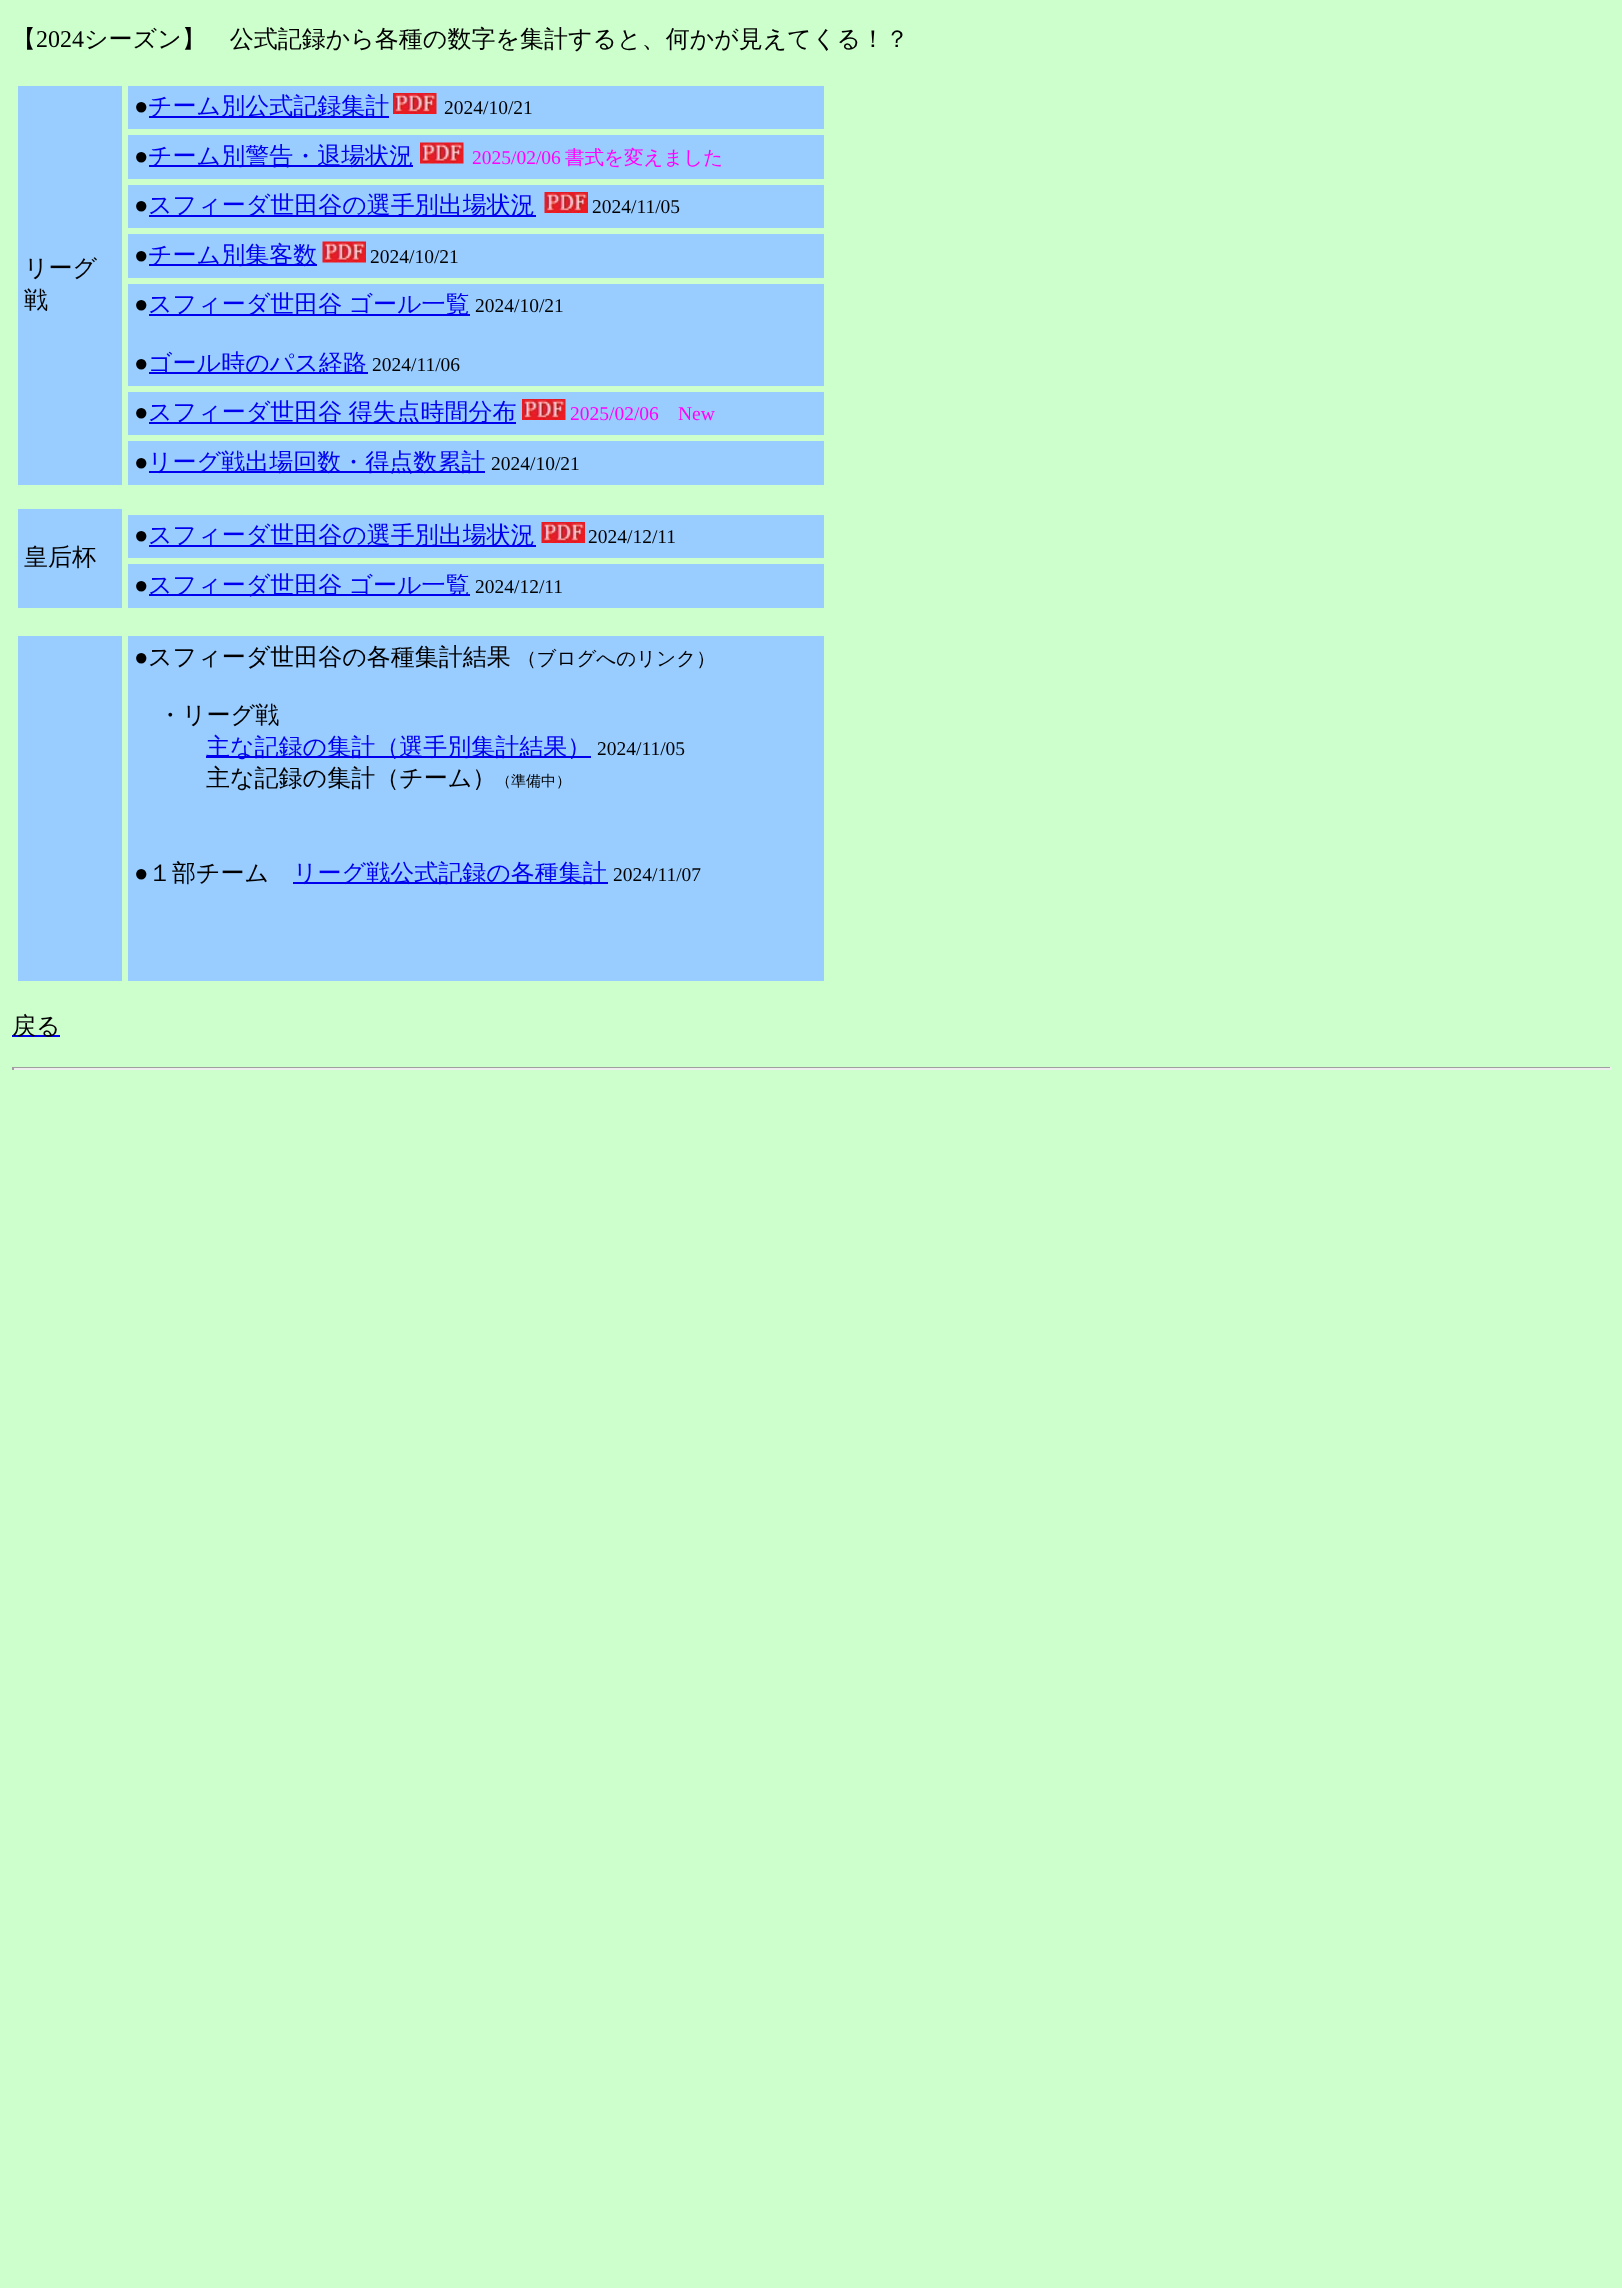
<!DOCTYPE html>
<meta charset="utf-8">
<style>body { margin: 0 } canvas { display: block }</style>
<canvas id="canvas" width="1622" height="2288"></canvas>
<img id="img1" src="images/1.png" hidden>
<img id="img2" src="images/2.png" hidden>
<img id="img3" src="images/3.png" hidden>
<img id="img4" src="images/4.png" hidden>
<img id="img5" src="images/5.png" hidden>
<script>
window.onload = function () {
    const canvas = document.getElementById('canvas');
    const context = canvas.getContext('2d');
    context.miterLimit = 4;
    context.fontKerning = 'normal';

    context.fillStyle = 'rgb(204, 255, 204)';
    context.fillRect(0, 0, 1622, 2288);
    context.fillStyle = 'rgb(153, 204, 255)';
    context.fillRect(128, 86, 696, 43);
    context.fillStyle = 'rgb(0, 0, 238)';
    context.fillRect(149, 116, 240, 2);
    context.drawImage(document.getElementById('img1'), 393, 93, 44, 21);
    context.fillStyle = 'rgb(153, 204, 255)';
    context.fillRect(18, 86, 104, 399);
    context.fillRect(128, 135, 696, 44);
    context.fillStyle = 'rgb(0, 0, 238)';
    context.fillRect(149, 165, 264, 2);
    context.drawImage(document.getElementById('img2'), 420, 142, 44, 22);
    context.fillStyle = 'rgb(153, 204, 255)';
    context.fillRect(128, 185, 696, 43);
    context.fillStyle = 'rgb(0, 0, 238)';
    context.fillRect(149, 215, 387, 2);
    context.drawImage(document.getElementById('img3'), 544, 192, 44, 21);
    context.fillStyle = 'rgb(153, 204, 255)';
    context.fillRect(128, 234, 696, 44);
    context.fillStyle = 'rgb(0, 0, 238)';
    context.fillRect(149, 264, 168, 2);
    context.drawImage(document.getElementById('img4'), 322, 241, 44, 22);
    context.fillStyle = 'rgb(153, 204, 255)';
    context.fillRect(128, 284, 696, 102);
    context.fillStyle = 'rgb(0, 0, 238)';
    context.fillRect(149, 314, 321, 2);
    context.fillRect(149, 372, 219, 2);
    context.fillStyle = 'rgb(153, 204, 255)';
    context.fillRect(128, 392, 696, 43);
    context.fillStyle = 'rgb(0, 0, 238)';
    context.fillRect(149, 422, 367, 2);
    context.drawImage(document.getElementById('img5'), 522, 399, 44, 21);
    context.fillStyle = 'rgb(153, 204, 255)';
    context.fillRect(128, 441, 696, 44);
    context.fillStyle = 'rgb(0, 0, 238)';
    context.fillRect(149, 471, 336, 2);
    context.fillStyle = 'rgb(153, 204, 255)';
    context.fillRect(128, 515, 696, 43);
    context.fillStyle = 'rgb(0, 0, 238)';
    context.fillRect(149, 545, 387, 2);
    context.drawImage(document.getElementById('img3'), 541, 522, 44, 21);
    context.fillStyle = 'rgb(153, 204, 255)';
    context.fillRect(18, 509, 104, 99);
    context.fillRect(128, 564, 696, 44);
    context.fillStyle = 'rgb(0, 0, 238)';
    context.fillRect(149, 594, 321, 2);
    context.fillStyle = 'rgb(153, 204, 255)';
    context.fillRect(18, 636, 104, 345);
    context.fillRect(128, 636, 696, 345);
    context.fillStyle = 'rgb(0, 0, 238)';
    context.fillRect(206, 756, 385, 2);
    context.fillRect(293, 882, 315, 2);
    context.fillRect(12, 1035, 48, 2);
    context.fillStyle = 'rgb(159, 159, 159)';
    context.fillRect(12, 1067, 1599, 1);
    context.fillStyle = 'rgb(238, 238, 238)';
    context.fillRect(1610, 1067, 2, 3);
    context.fillRect(12, 1068, 1599, 2);
    context.fillStyle = 'rgb(159, 159, 159)';
    context.fillRect(12, 1067, 2, 3);
    context.font = '500 24px WenQuanYi Zen Hei';
    context.fillStyle = 'rgb(0, 0, 0)';
    context.fillText('【', 12, 47);
    context.font = '24px Liberation Serif';
    context.fillText('2024', 36, 47);
    context.font = '500 24px WenQuanYi Zen Hei';
    context.fillText('シーズン】　公式記録から各種の数字を集計すると、何かが見えてくる！？', 84, 47);
    context.font = '24px Liberation Serif';
    context.fillText('●', 134, 114);
    context.font = '500 24px WenQuanYi Zen Hei';
    context.fillStyle = 'rgb(0, 0, 238)';
    context.fillText('チーム別公式記録集計', 148, 114);
    context.font = '19.5px Liberation Serif';
    context.fillStyle = 'rgb(0, 0, 0)';
    context.fillText('2024/10/21', 444, 114);
    context.font = '500 24px WenQuanYi Zen Hei';
    context.fillText('リーグ', 24, 276);
    context.fillText('戦', 24, 308);
    context.font = '24px Liberation Serif';
    context.fillText('●', 134, 164);
    context.font = '500 24px WenQuanYi Zen Hei';
    context.fillStyle = 'rgb(0, 0, 238)';
    context.fillText('チーム別警告・退場状況', 148, 164);
    context.font = '19.5px Liberation Serif';
    context.fillStyle = 'rgb(255, 0, 255)';
    context.fillText('2025/02/06', 472, 164);
    context.font = '500 19.5px WenQuanYi Zen Hei';
    context.fillText('書式を変えました', 565, 164);
    context.font = '24px Liberation Serif';
    context.fillStyle = 'rgb(0, 0, 0)';
    context.fillText('●', 134, 213);
    context.font = '500 24px WenQuanYi Zen Hei';
    context.fillStyle = 'rgb(0, 0, 238)';
    context.fillText('スフィーダ世田谷の選手別出場状況', 148, 213);
    context.font = '19.5px Liberation Serif';
    context.fillStyle = 'rgb(0, 0, 0)';
    context.fillText('2024/11/05', 592, 213);
    context.font = '24px Liberation Serif';
    context.fillText('●', 134, 263);
    context.font = '500 24px WenQuanYi Zen Hei';
    context.fillStyle = 'rgb(0, 0, 238)';
    context.fillText('チーム別集客数', 148, 263);
    context.font = '19.5px Liberation Serif';
    context.fillStyle = 'rgb(0, 0, 0)';
    context.fillText('2024/10/21', 370, 263);
    context.font = '24px Liberation Serif';
    context.fillText('●', 134, 312);
    context.wordSpacing = '-1px';
    context.font = '500 24px WenQuanYi Zen Hei';
    context.fillStyle = 'rgb(0, 0, 238)';
    context.fillText('スフィーダ世田谷 ゴール一覧', 148, 312);
    context.wordSpacing = '0px';
    context.font = '19.5px Liberation Serif';
    context.fillStyle = 'rgb(0, 0, 0)';
    context.fillText('2024/10/21', 475, 312);
    context.font = '24px Liberation Serif';
    context.fillText('●', 134, 371);
    context.font = '500 24px WenQuanYi Zen Hei';
    context.fillStyle = 'rgb(0, 0, 238)';
    context.fillText('ゴール時のパス経路', 148, 371);
    context.font = '19.5px Liberation Serif';
    context.fillStyle = 'rgb(0, 0, 0)';
    context.fillText('2024/11/06', 372, 371);
    context.font = '24px Liberation Serif';
    context.fillText('●', 134, 420);
    context.wordSpacing = '-1px';
    context.font = '500 24px WenQuanYi Zen Hei';
    context.fillStyle = 'rgb(0, 0, 238)';
    context.fillText('スフィーダ世田谷 得失点時間分布', 148, 420);
    context.wordSpacing = '0px';
    context.font = '19.5px Liberation Serif';
    context.fillStyle = 'rgb(255, 0, 255)';
    context.fillText('2025/02/06', 570, 420);
    context.fillText('New', 678, 420);
    context.font = '24px Liberation Serif';
    context.fillStyle = 'rgb(0, 0, 0)';
    context.fillText('●', 134, 470);
    context.font = '500 24px WenQuanYi Zen Hei';
    context.fillStyle = 'rgb(0, 0, 238)';
    context.fillText('リーグ戦出場回数・得点数累計', 148, 470);
    context.font = '19.5px Liberation Serif';
    context.fillStyle = 'rgb(0, 0, 0)';
    context.fillText('2024/10/21', 491, 470);
    context.font = '24px Liberation Serif';
    context.fillText('●', 134, 543);
    context.font = '500 24px WenQuanYi Zen Hei';
    context.fillStyle = 'rgb(0, 0, 238)';
    context.fillText('スフィーダ世田谷の選手別出場状況', 148, 543);
    context.font = '19.5px Liberation Serif';
    context.fillStyle = 'rgb(0, 0, 0)';
    context.fillText('2024/12/11', 588, 543);
    context.font = '500 24px WenQuanYi Zen Hei';
    context.fillText('皇后杯', 24, 565);
    context.font = '24px Liberation Serif';
    context.fillText('●', 134, 593);
    context.wordSpacing = '-1px';
    context.font = '500 24px WenQuanYi Zen Hei';
    context.fillStyle = 'rgb(0, 0, 238)';
    context.fillText('スフィーダ世田谷 ゴール一覧', 148, 593);
    context.wordSpacing = '0px';
    context.font = '19.5px Liberation Serif';
    context.fillStyle = 'rgb(0, 0, 0)';
    context.fillText('2024/12/11', 475, 593);
    context.font = '24px Liberation Serif';
    context.fillText('●', 134, 665);
    context.font = '500 24px WenQuanYi Zen Hei';
    context.fillText('スフィーダ世田谷の各種集計結果', 148, 665);
    context.font = '500 19.5px WenQuanYi Zen Hei';
    context.fillText('（ブログへのリンク）', 517, 665);
    context.font = '500 24px WenQuanYi Zen Hei';
    context.fillText('・リーグ戦', 158, 723);
    context.fillStyle = 'rgb(0, 0, 238)';
    context.fillText('主な記録の集計（選手別集計結果）', 206, 755);
    context.font = '19.5px Liberation Serif';
    context.fillStyle = 'rgb(0, 0, 0)';
    context.fillText('2024/11/05', 597, 755);
    context.font = '500 24px WenQuanYi Zen Hei';
    context.fillText('主な記録の集計（チーム）', 206, 786);
    context.font = '500 15px WenQuanYi Zen Hei';
    context.fillText('（準備中）', 496, 786);
    context.font = '24px Liberation Serif';
    context.fillText('●', 134, 881);
    context.font = '500 24px WenQuanYi Zen Hei';
    context.fillText('１部チーム', 148, 881);
    context.fillStyle = 'rgb(0, 0, 238)';
    context.fillText('リーグ戦公式記録の各種集計', 293, 881);
    context.font = '19.5px Liberation Serif';
    context.fillStyle = 'rgb(0, 0, 0)';
    context.fillText('2024/11/07', 613, 881);
    context.font = '500 24px WenQuanYi Zen Hei';
    context.fillText('戻る', 12, 1034);
};
</script>
